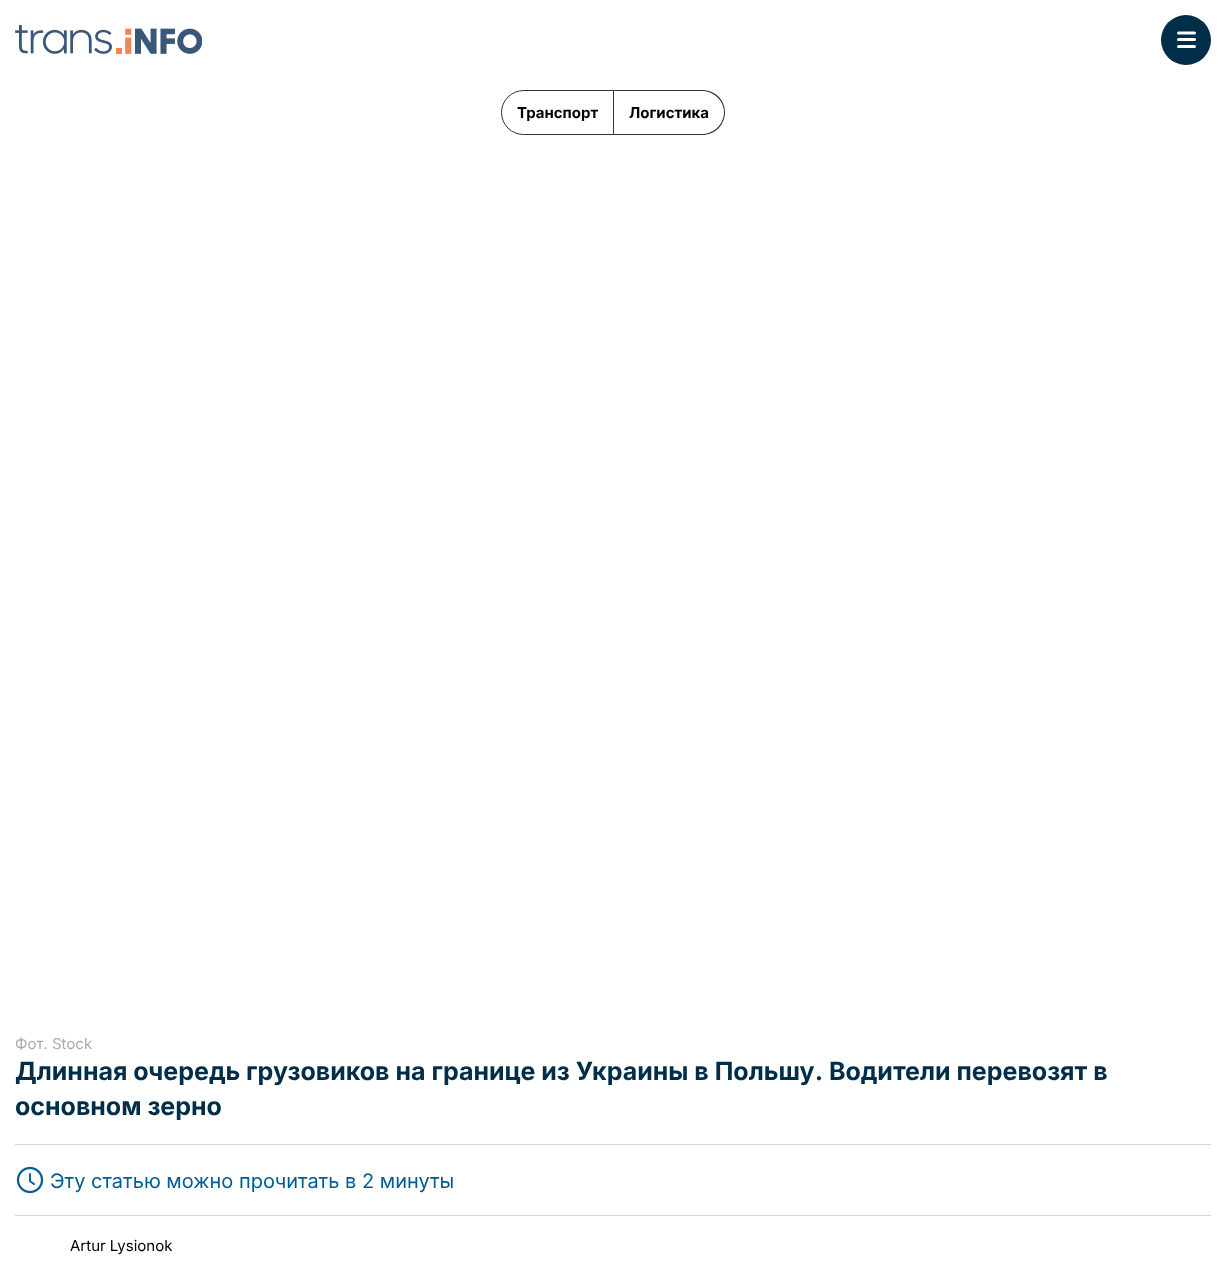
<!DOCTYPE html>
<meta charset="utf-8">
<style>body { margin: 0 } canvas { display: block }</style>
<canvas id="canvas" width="1226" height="1267"></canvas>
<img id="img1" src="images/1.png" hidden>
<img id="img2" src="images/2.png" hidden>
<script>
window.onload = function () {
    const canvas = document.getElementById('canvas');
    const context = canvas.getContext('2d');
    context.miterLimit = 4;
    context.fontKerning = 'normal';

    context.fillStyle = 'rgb(255, 255, 255)';
    context.fillRect(0, 0, 1226, 1267);
    context.drawImage(document.getElementById('img1'), 15, 25, 187, 29);
    context.fillStyle = 'rgb(0, 45, 72)';
    context.beginPath();
    context.arc(1186, 40, 25, 0, 2 * Math.PI);
    context.fill();
    context.beginPath();
    context.moveTo(1178.5, 33);
    context.lineTo(1194.5, 33);
    context.moveTo(1178.5, 39.5);
    context.lineTo(1194.5, 39.5);
    context.moveTo(1178.5, 46.5);
    context.lineTo(1194.5, 46.5);
    context.strokeStyle = 'rgb(255, 255, 255)';
    context.lineWidth = 3;
    context.lineCap = 'round';
    context.stroke();
    context.beginPath();
    context.roundRect(501.5, 90.5, 112, 44, [22, 0, 0, 22]);
    context.strokeStyle = 'rgb(51, 51, 51)';
    context.lineWidth = 1;
    context.stroke();
    context.fillStyle = 'rgb(51, 51, 51)';
    context.beginPath();
    context.moveTo(614, 90);
    context.lineTo(702, 90);
    context.bezierCurveTo(715, 90, 725, 100, 725, 112);
    context.bezierCurveTo(725, 125, 715, 135, 702, 135);
    context.lineTo(614, 135);
    context.closePath();
    context.moveTo(614, 91);
    context.lineTo(702, 91);
    context.bezierCurveTo(714, 91, 724, 101, 724, 112);
    context.bezierCurveTo(724, 124, 714, 134, 702, 134);
    context.lineTo(614, 134);
    context.closePath();
    context.fill('evenodd');
    context.fillStyle = 'rgb(211, 211, 211)';
    context.fillRect(15, 1144, 1196, 1);
    context.fillRect(15, 1215, 1196, 1);
    context.drawImage(document.getElementById('img2'), 16, 1166, 28, 28);
    context.font = 'bold 15px Inter';
    context.fillStyle = 'rgb(0, 0, 0)';
    context.fillText('Транспорт', 517, 118);
    context.fillText('Логистика', 629, 118);
    context.font = '15px Inter';
    context.fillStyle = 'rgb(170, 170, 170)';
    context.fillText('Фот. Stock', 15, 1049);
    context.font = 'bold 25px Inter';
    context.fillStyle = 'rgb(0, 45, 72)';
    context.fillText('Длинная очередь грузовиков на границе из Украины в Польшу. Водители перевозят в', 15, 1080);
    context.fillText('основном зерно', 15, 1115);
    context.font = '20px Inter';
    context.fillStyle = 'rgb(1, 92, 146)';
    context.fillText('Эту статью можно прочитать в 2 минуты', 50, 1188);
    context.font = '15px Inter';
    context.fillStyle = 'rgb(0, 0, 0)';
    context.fillText('Artur Lysionok', 70, 1251);
};
</script>
